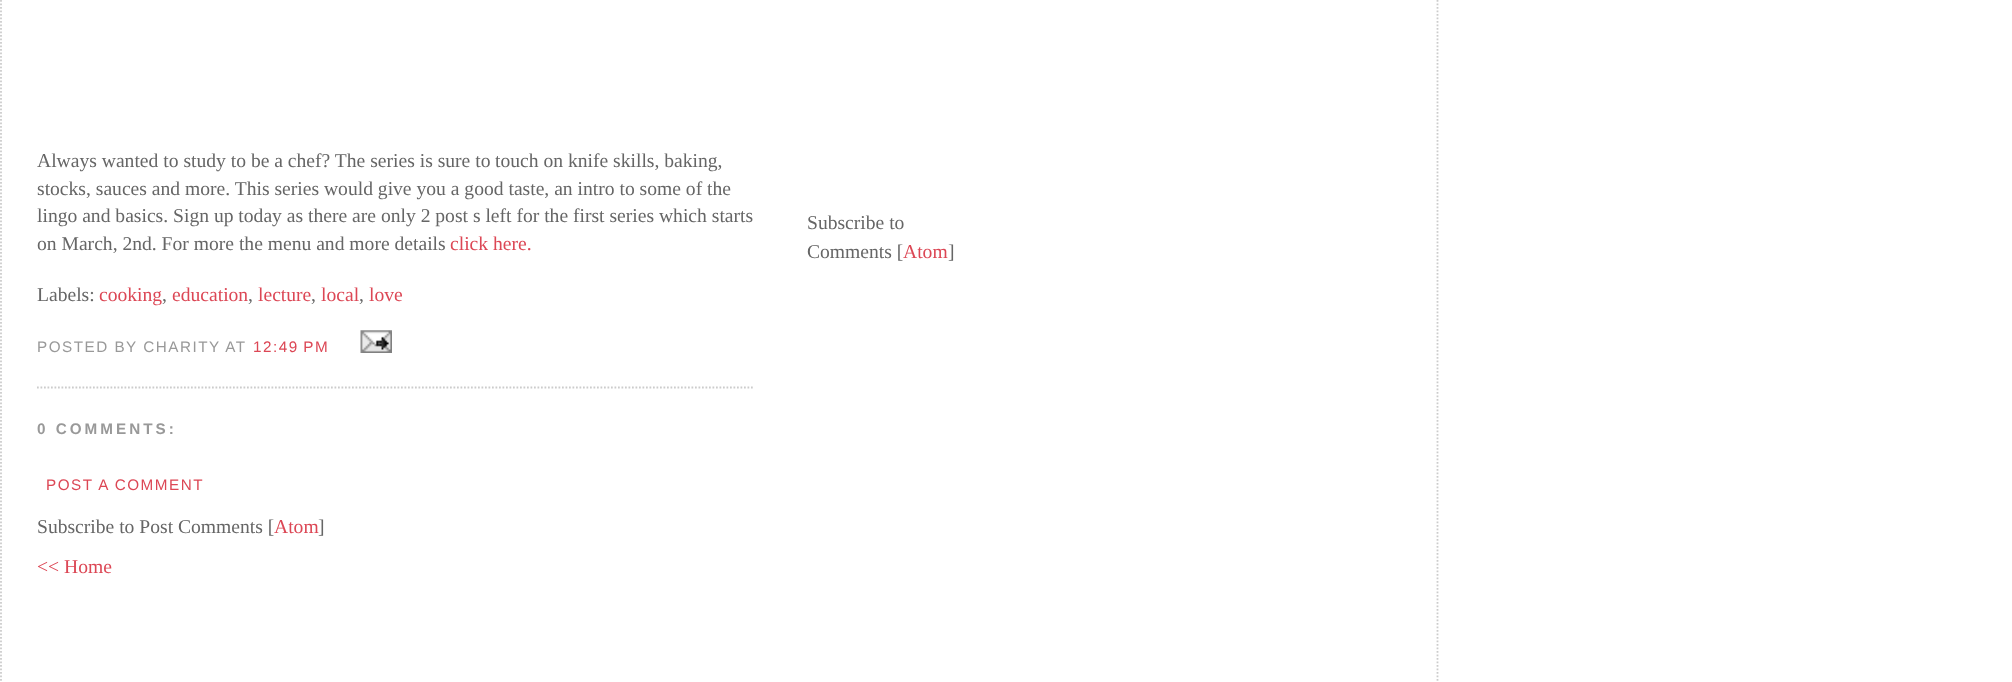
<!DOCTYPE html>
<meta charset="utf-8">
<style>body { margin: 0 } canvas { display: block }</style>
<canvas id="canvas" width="2012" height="682"></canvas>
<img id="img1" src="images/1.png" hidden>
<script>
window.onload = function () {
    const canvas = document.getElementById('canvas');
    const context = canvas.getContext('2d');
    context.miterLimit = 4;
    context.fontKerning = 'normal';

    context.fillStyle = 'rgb(255, 255, 255)';
    context.fillRect(0, 0, 2012, 682);
    context.beginPath();
    context.moveTo(1437.5, -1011.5);
    context.lineTo(1437.5, 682.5);
    context.strokeStyle = 'rgb(204, 204, 204)';
    context.lineWidth = 1.8;
    context.setLineDash([1.75, 1.75]);
    context.stroke();
    context.beginPath();
    context.moveTo(1, -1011.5);
    context.lineTo(1, 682.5);
    context.stroke();
    context.beginPath();
    context.moveTo(37, 387.5);
    context.lineTo(754, 387.5);
    context.stroke();
    context.drawImage(document.getElementById('img1'), 360, 330, 32, 23);
    context.font = '19.6px Liberation Serif';
    context.fillStyle = 'rgb(102, 102, 102)';
    context.fillText('Always wanted to study to be a chef? The series is sure to', 37, 167);
    context.fillText('touch on knife skills, baking,', 495, 167);
    context.fillText('stocks, sauces and more. This series would give you a good taste, an intro to some of the', 37, 195);
    context.fillText('lingo and basics. Sign up today as there are only 2 post s left for the first series which starts', 37, 222);
    context.fillText('on March, 2nd. For more the menu and more details', 37, 250);
    context.fillStyle = 'rgb(220, 71, 85)';
    context.fillText('click here.', 450, 250);
    context.fillStyle = 'rgb(102, 102, 102)';
    context.fillText('Labels:', 37, 301);
    context.fillStyle = 'rgb(220, 71, 85)';
    context.fillText('cooking', 99, 301);
    context.fillStyle = 'rgb(102, 102, 102)';
    context.fillText(',', 162, 301);
    context.fillStyle = 'rgb(220, 71, 85)';
    context.fillText('education', 172, 301);
    context.fillStyle = 'rgb(102, 102, 102)';
    context.fillText(',', 248, 301);
    context.fillStyle = 'rgb(220, 71, 85)';
    context.fillText('lecture', 258, 301);
    context.fillStyle = 'rgb(102, 102, 102)';
    context.fillText(',', 311, 301);
    context.fillStyle = 'rgb(220, 71, 85)';
    context.fillText('local', 321, 301);
    context.fillStyle = 'rgb(102, 102, 102)';
    context.fillText(',', 359, 301);
    context.fillStyle = 'rgb(220, 71, 85)';
    context.fillText('love', 369, 301);
    context.letterSpacing = '1.5px';
    context.font = '15.25px Liberation Sans';
    context.fillStyle = 'rgb(153, 153, 153)';
    context.fillText('POSTED BY CHARITY AT', 37, 352);
    context.fillStyle = 'rgb(220, 71, 85)';
    context.fillText('12:49 PM', 253, 352);
    context.letterSpacing = '3px';
    context.font = 'bold 15.25px Liberation Sans';
    context.fillStyle = 'rgb(153, 153, 153)';
    context.fillText('0 COMMENTS:', 37, 434);
    context.letterSpacing = '1.5px';
    context.font = '15.25px Liberation Sans';
    context.fillStyle = 'rgb(220, 71, 85)';
    context.fillText('POST A COMMENT', 46, 490);
    context.letterSpacing = '0px';
    context.font = '19.6px Liberation Serif';
    context.fillStyle = 'rgb(102, 102, 102)';
    context.fillText('Subscribe to Post Comments [', 37, 533);
    context.fillStyle = 'rgb(220, 71, 85)';
    context.fillText('Atom', 274, 533);
    context.fillStyle = 'rgb(102, 102, 102)';
    context.fillText(']', 318, 533);
    context.fillStyle = 'rgb(220, 71, 85)';
    context.fillText('<< Home', 37, 573);
    context.fillStyle = 'rgb(102, 102, 102)';
    context.fillText('Subscribe to', 807, 229);
    context.fillText('Comments [', 807, 258);
    context.fillStyle = 'rgb(220, 71, 85)';
    context.fillText('Atom', 903, 258);
    context.fillStyle = 'rgb(102, 102, 102)';
    context.fillText(']', 948, 258);
};
</script>
